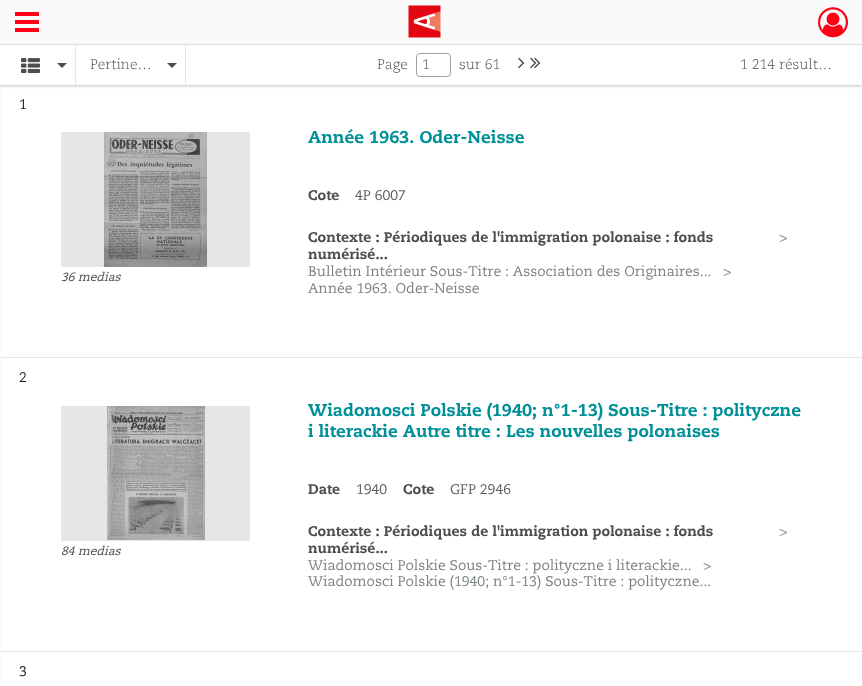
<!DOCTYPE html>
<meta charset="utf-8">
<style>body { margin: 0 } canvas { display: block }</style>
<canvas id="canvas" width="862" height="686"></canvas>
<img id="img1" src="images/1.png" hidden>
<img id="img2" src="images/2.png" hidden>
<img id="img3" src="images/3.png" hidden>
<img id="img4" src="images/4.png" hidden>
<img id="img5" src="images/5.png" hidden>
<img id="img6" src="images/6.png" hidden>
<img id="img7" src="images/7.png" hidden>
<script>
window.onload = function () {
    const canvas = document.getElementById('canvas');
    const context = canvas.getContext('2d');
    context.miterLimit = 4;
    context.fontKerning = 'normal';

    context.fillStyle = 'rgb(255, 255, 255)';
    context.fillRect(0, 0, 862, 686);
    context.fillStyle = 'rgb(250, 250, 250)';
    context.fillRect(0, 0, 862, 44);
    context.fillStyle = 'rgb(229, 230, 230)';
    context.fillRect(0, 44, 862, 1);
    context.fillStyle = 'rgb(255, 0, 20)';
    context.fillRect(15, 12, 24, 4);
    context.fillRect(15, 20, 24, 4);
    context.fillRect(15, 28, 24, 4);
    context.drawImage(document.getElementById('img1'), 408, 5, 33, 33);
    context.drawImage(document.getElementById('img2'), 818, 7, 30, 31);
    context.fillStyle = 'rgb(250, 250, 250)';
    context.fillRect(0, 85, 1, 601);
    context.save();
    context.beginPath();
    context.moveTo(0, 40);
    context.lineTo(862, 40);
    context.lineTo(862, 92);
    context.lineTo(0, 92);
    context.closePath();
    context.moveTo(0, 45);
    context.lineTo(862, 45);
    context.lineTo(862, 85);
    context.lineTo(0, 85);
    context.closePath();
    context.clip('evenodd');
    context.fillStyle = 'rgba(0, 0, 0, 0.25)';
    context.filter = 'blur(1.5px)';
    context.beginPath();
    context.rect(0, 46, 862, 40);
    context.fill();
    context.filter = 'none';
    context.restore();
    context.fillStyle = 'rgb(229, 230, 230)';
    context.fillRect(75, 45, 1, 40);
    context.drawImage(document.getElementById('img3'), 21, 58, 19, 15);
    context.fillStyle = 'rgb(74, 78, 79)';
    context.beginPath();
    context.moveTo(57, 63);
    context.lineTo(67, 63);
    context.lineTo(62, 68);
    context.closePath();
    context.fill();
    context.fillStyle = 'rgb(229, 230, 230)';
    context.fillRect(185, 45, 1, 40);
    context.fillStyle = 'rgb(74, 78, 79)';
    context.beginPath();
    context.moveTo(167, 63);
    context.lineTo(177, 63);
    context.lineTo(172, 68);
    context.closePath();
    context.fill();
    context.beginPath();
    context.roundRect(416.5, 53.5, 34, 23, 3.5);
    context.strokeStyle = 'rgb(155, 160, 162)';
    context.stroke();
    context.drawImage(document.getElementById('img4'), 518, 57, 7, 12);
    context.drawImage(document.getElementById('img5'), 530, 57, 11, 12);
    context.fillStyle = 'rgb(229, 230, 230)';
    context.fillRect(1, 357, 861, 1);
    context.fillRect(61, 132, 189, 135);
    context.drawImage(document.getElementById('img6'), 104, 132, 103, 135);
    context.fillRect(1, 651, 861, 1);
    context.fillRect(61, 406, 189, 135);
    context.drawImage(document.getElementById('img7'), 107, 406, 98, 134);
    context.font = '300 14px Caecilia';
    context.fillStyle = 'rgb(74, 78, 79)';
    context.fillText('Pertine…', 90, 69);
    context.fillText('Page', 377, 69);
    context.fillText('1', 422, 69);
    context.fillText('sur 61', 459, 69);
    context.fillText('1 214 résult…', 740, 69);
    context.font = '14px Caecilia';
    context.fillStyle = 'rgb(33, 37, 41)';
    context.fillText('1', 19, 109);
    context.font = 'italic 12px Caecilia';
    context.fillStyle = 'rgb(74, 78, 79)';
    context.fillText('36 medias', 61, 281);
    context.font = '800 17px Caecilia';
    context.fillStyle = 'rgb(0, 144, 152)';
    context.fillText('Année 1963. Oder-Neisse', 308, 143);
    context.font = '800 14px Caecilia';
    context.fillStyle = 'rgb(74, 78, 79)';
    context.fillText('Cote', 308, 200);
    context.font = '14px Caecilia';
    context.fillStyle = 'rgb(91, 96, 98)';
    context.fillText('4P 6007', 355, 200);
    context.font = '800 14px Caecilia';
    context.fillStyle = 'rgb(74, 78, 79)';
    context.fillText('Contexte : Périodiques de l\'immigration polonaise : fonds', 308, 242);
    context.fillText('numérisé...', 308, 259);
    context.font = '14px Caecilia';
    context.fillStyle = 'rgb(123, 130, 132)';
    context.fillText('>', 779, 242);
    context.fillText('Bulletin Intérieur Sous-Titre : Association des Originaires...', 308, 276);
    context.fillText('>', 723, 276);
    context.fillText('Année 1963. Oder-Neisse', 308, 293);
    context.fillStyle = 'rgb(33, 37, 41)';
    context.fillText('2', 19, 382);
    context.font = 'italic 12px Caecilia';
    context.fillStyle = 'rgb(74, 78, 79)';
    context.fillText('84 medias', 61, 555);
    context.font = '800 17px Caecilia';
    context.fillStyle = 'rgb(0, 144, 152)';
    context.fillText('Wiadomosci Polskie (1940; n°1-13) Sous-Titre : polityczne', 308, 416);
    context.fillText('i literackie Autre titre : Les nouvelles polonaises', 308, 437);
    context.font = '800 14px Caecilia';
    context.fillStyle = 'rgb(74, 78, 79)';
    context.fillText('Date', 308, 494);
    context.font = '14px Caecilia';
    context.fillStyle = 'rgb(91, 96, 98)';
    context.fillText('1940', 356, 494);
    context.font = '800 14px Caecilia';
    context.fillStyle = 'rgb(74, 78, 79)';
    context.fillText('Cote', 403, 494);
    context.font = '14px Caecilia';
    context.fillStyle = 'rgb(91, 96, 98)';
    context.fillText('GFP 2946', 450, 494);
    context.font = '800 14px Caecilia';
    context.fillStyle = 'rgb(74, 78, 79)';
    context.fillText('Contexte : Périodiques de l\'immigration polonaise : fonds', 308, 536);
    context.fillText('numérisé...', 308, 553);
    context.font = '14px Caecilia';
    context.fillStyle = 'rgb(123, 130, 132)';
    context.fillText('>', 779, 536);
    context.fillText('Wiadomosci Polskie Sous-Titre : polityczne i literackie...', 308, 570);
    context.fillText('>', 703, 570);
    context.fillText('Wiadomosci Polskie (1940; n°1-13) Sous-Titre : polityczne...', 308, 586);
    context.fillStyle = 'rgb(33, 37, 41)';
    context.fillText('3', 19, 676);
};
</script>
